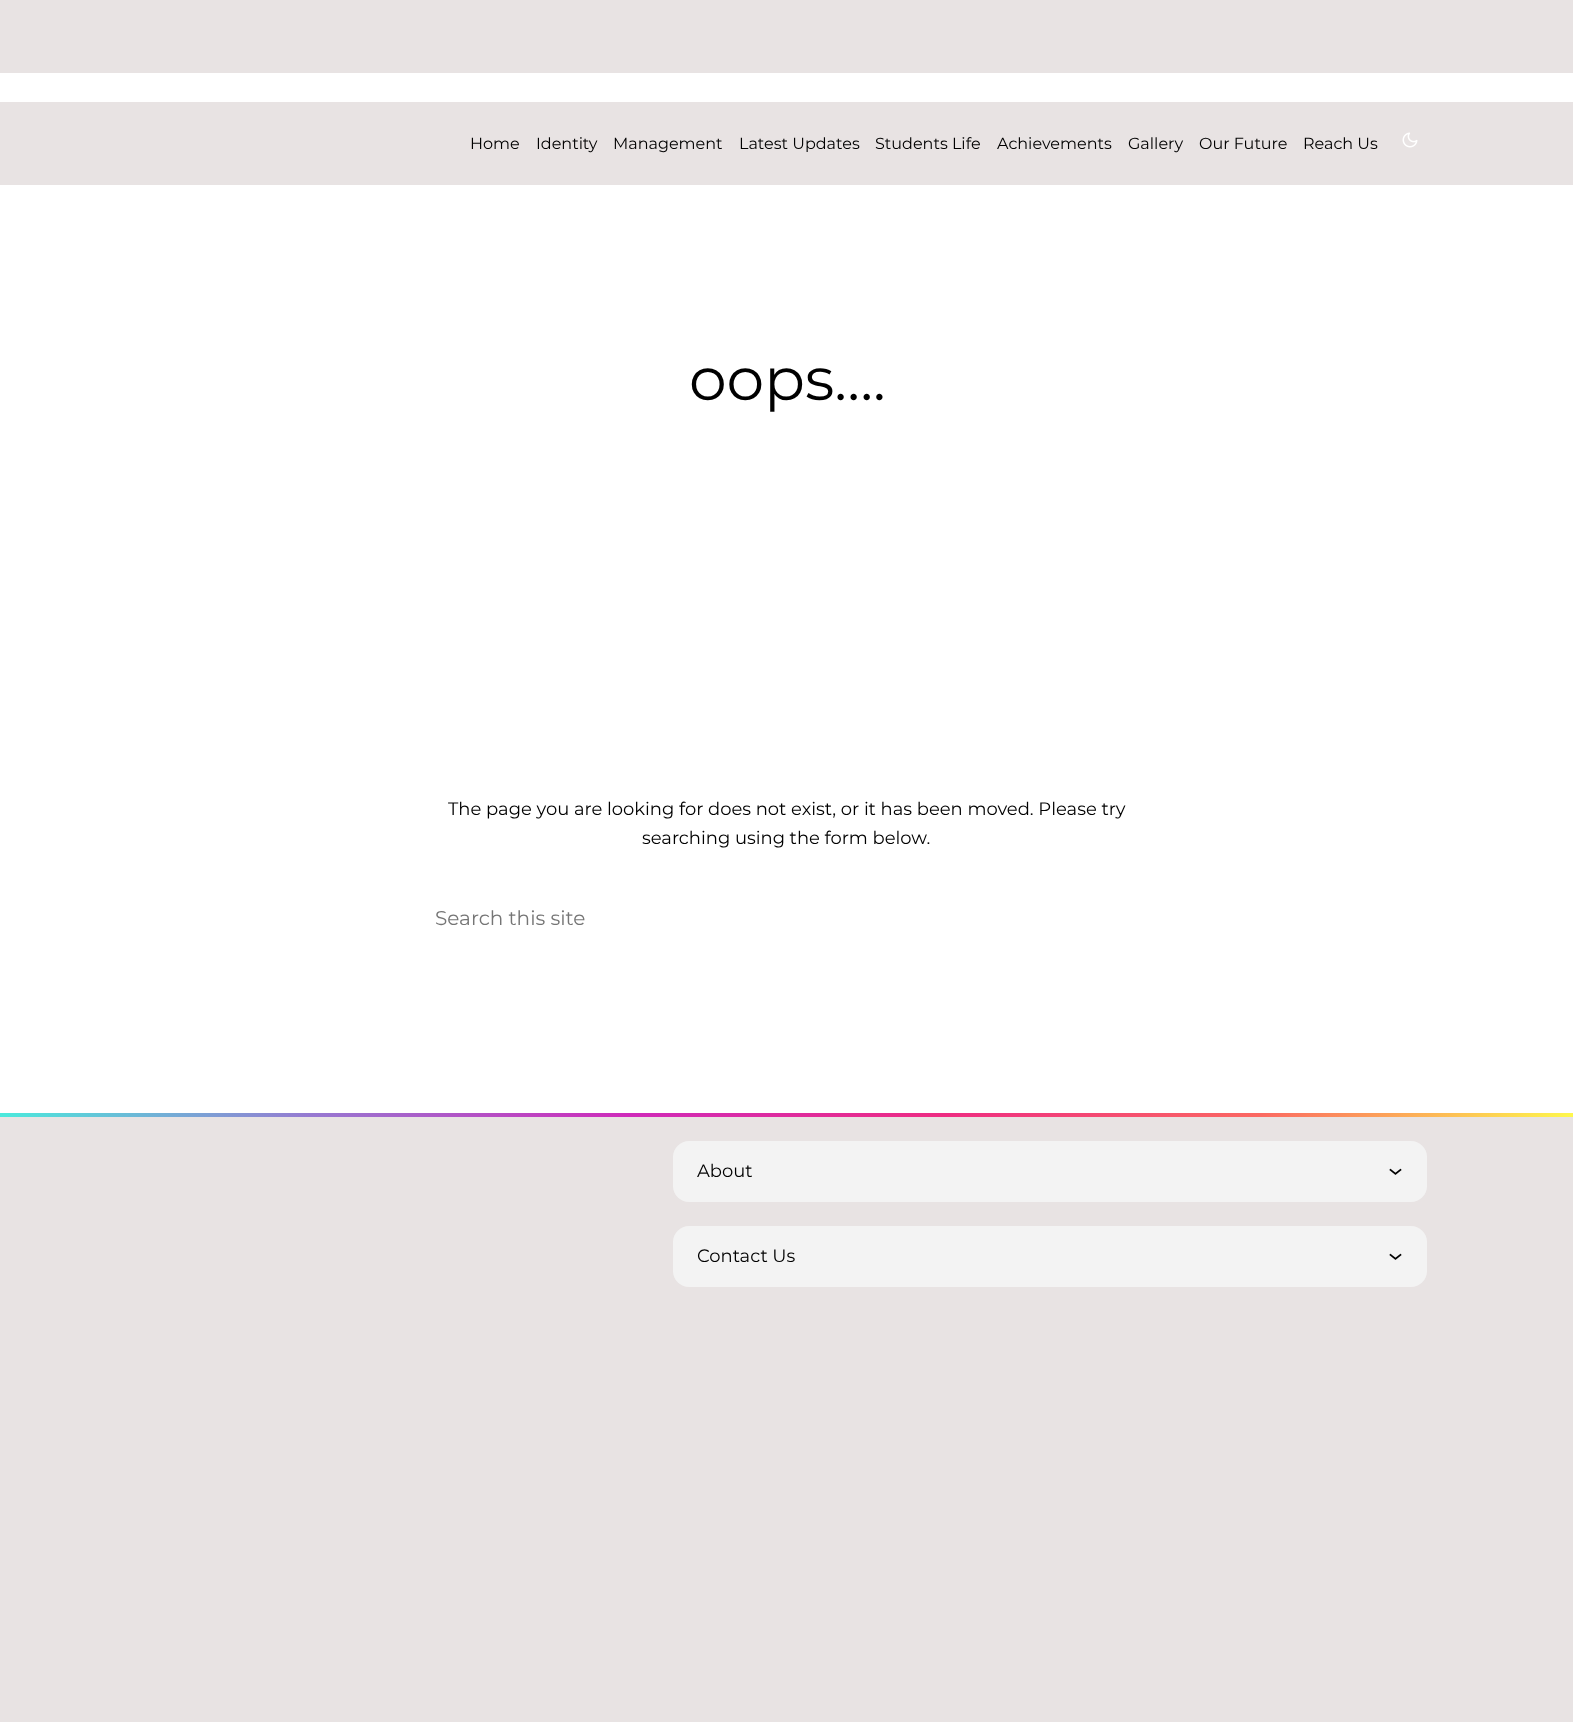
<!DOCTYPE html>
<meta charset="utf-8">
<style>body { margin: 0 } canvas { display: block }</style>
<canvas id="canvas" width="1573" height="1722"></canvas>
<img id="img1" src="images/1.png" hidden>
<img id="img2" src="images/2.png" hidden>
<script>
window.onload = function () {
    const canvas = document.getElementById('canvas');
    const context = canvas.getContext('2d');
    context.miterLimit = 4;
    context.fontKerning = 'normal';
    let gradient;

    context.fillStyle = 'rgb(232, 227, 227)';
    context.fillRect(0, 0, 1573, 1722);
    context.fillStyle = 'rgb(255, 255, 255)';
    context.fillRect(0, 73, 1573, 29);
    context.drawImage(document.getElementById('img1'), 1402, 132, 16, 16);
    context.fillRect(0, 185, 1573, 928);
    gradient = context.createLinearGradient(392, 721, 1181, 1509);
    gradient.addColorStop(0, 'rgb(74, 234, 220)');
    gradient.addColorStop(0.2, 'rgb(151, 120, 209)');
    gradient.addColorStop(0.4, 'rgb(207, 42, 186)');
    gradient.addColorStop(0.6, 'rgb(238, 44, 130)');
    gradient.addColorStop(0.8, 'rgb(251, 105, 98)');
    gradient.addColorStop(1, 'rgb(254, 248, 76)');
    context.fillStyle = gradient;
    context.fillRect(0, 1113, 1573, 4);
    context.fillStyle = 'rgb(243, 243, 243)';
    context.beginPath();
    context.roundRect(673, 1141, 754, 61, 16);
    context.fill();
    context.drawImage(document.getElementById('img2'), 1389, 1168, 13, 7);
    context.beginPath();
    context.roundRect(673, 1226, 754, 61, 16);
    context.fill();
    context.drawImage(document.getElementById('img2'), 1389, 1253, 13, 7);
    context.font = '16px Montserrat';
    context.fillStyle = 'rgb(0, 0, 0)';
    context.fillText('Home', 470, 149);
    context.fillText('Identity', 536, 149);
    context.fillText('Management', 613, 149);
    context.fillText('Latest Updates', 739, 149);
    context.fillText('Students Life', 875, 149);
    context.fillText('Achievements', 997, 149);
    context.fillText('Gallery', 1128, 149);
    context.fillText('Our Future', 1199, 149);
    context.fillText('Reach Us', 1303, 149);
    context.font = '60px Montserrat';
    context.fillText('oops….', 689, 400);
    context.font = '17.95px Montserrat';
    context.fillText('The page you are looking for does not exist, or it has been moved. Please try', 448, 815);
    context.fillText('searching using the form below.', 642, 844);
    context.font = '20px Montserrat';
    context.fillStyle = 'rgb(117, 117, 117)';
    context.fillText('Search this site', 435, 925);
    context.font = '17.95px Montserrat';
    context.fillStyle = 'rgb(0, 0, 0)';
    context.fillText('About', 697, 1177);
    context.fillText('Contact Us', 697, 1262);
};
</script>
